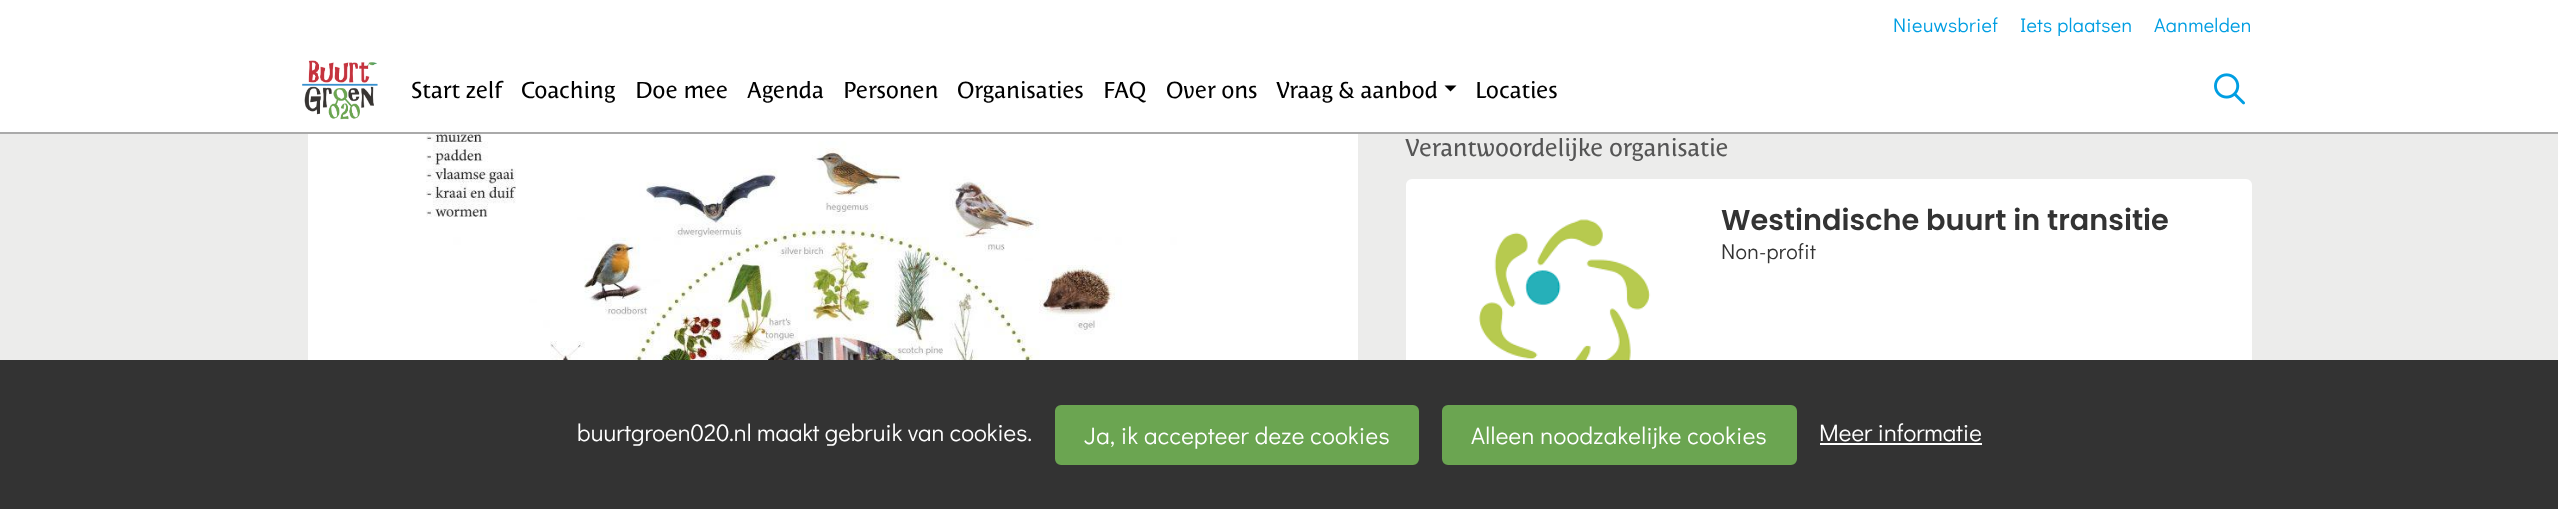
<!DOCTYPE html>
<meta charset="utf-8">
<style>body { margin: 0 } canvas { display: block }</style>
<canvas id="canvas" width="2558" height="509"></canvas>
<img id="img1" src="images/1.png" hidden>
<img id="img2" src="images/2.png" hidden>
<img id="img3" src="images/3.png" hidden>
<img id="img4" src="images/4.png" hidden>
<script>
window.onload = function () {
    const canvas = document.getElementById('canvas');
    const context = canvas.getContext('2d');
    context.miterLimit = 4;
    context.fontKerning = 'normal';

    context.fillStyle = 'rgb(236, 236, 235)';
    context.fillRect(0, 0, 2558, 509);
    context.fillStyle = 'rgb(255, 255, 255)';
    context.fillRect(0, 0, 2558, 132);
    context.fillStyle = 'rgb(170, 170, 170)';
    context.fillRect(0, 132, 2558, 2);
    context.drawImage(document.getElementById('img1'), 302, 60, 76, 60);
    context.fillStyle = 'rgb(0, 0, 0)';
    context.beginPath();
    context.moveTo(1444.5, 85.5);
    context.lineTo(1456.5, 85.5);
    context.lineTo(1450.5, 91.5);
    context.closePath();
    context.fill();
    context.drawImage(document.getElementById('img2'), 2214, 73, 31, 32);
    context.fillStyle = 'rgb(255, 255, 255)';
    context.fillRect(308, 134, 1050, 226);
    context.drawImage(document.getElementById('img3'), 426, 134, 752, 226);
    context.beginPath();
    context.roundRect(1406, 179, 846, 318, 6);
    context.fill();
    context.drawImage(document.getElementById('img4'), 1477, 219, 175, 141);
    context.fillStyle = 'rgb(51, 51, 51)';
    context.fillRect(0, 360, 2558, 149);
    context.fillStyle = 'rgb(107, 165, 81)';
    context.beginPath();
    context.roundRect(1056.5, 406.5, 361, 57, 4.5);
    context.fill();
    context.strokeStyle = 'rgb(107, 165, 81)';
    context.lineWidth = 3;
    context.stroke();
    context.beginPath();
    context.roundRect(1443.5, 406.5, 352, 57, 4.5);
    context.fill();
    context.stroke();
    context.fillStyle = 'rgb(255, 255, 255)';
    context.fillRect(1820, 443, 162, 2);
    context.letterSpacing = '0.3px';
    context.font = '19.75px Didact Gothic';
    context.fillStyle = 'rgb(0, 158, 226)';
    context.fillText('Nieuwsbrief', 1893, 32);
    context.fillText('Iets plaatsen', 2020, 32);
    context.fillText('Aanmelden', 2154, 32);
    context.letterSpacing = '0px';
    context.font = '22.75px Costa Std';
    context.fillStyle = 'rgb(0, 0, 0)';
    context.fillText('Start zelf', 411, 98);
    context.fillText('Coaching', 521, 98);
    context.fillText('Doe mee', 635, 98);
    context.fillText('Agenda', 747, 98);
    context.fillText('Personen', 843, 98);
    context.fillText('Organisaties', 957, 98);
    context.fillText('FAQ', 1103, 98);
    context.fillText('Over ons', 1166, 98);
    context.fillText('Vraag & aanbod', 1276, 98);
    context.fillText('Locaties', 1475, 98);
    context.font = '24px Costa Std';
    context.fillStyle = 'rgb(85, 85, 85)';
    context.fillText('Verantwoordelijke organisatie', 1405, 156);
    context.font = '600 28.75px Poppins';
    context.fillStyle = 'rgb(51, 51, 51)';
    context.fillText('Westindische buurt in transitie', 1721, 230);
    context.letterSpacing = '0.25px';
    context.font = '21.5px Didact Gothic';
    context.fillText('Non-profit', 1721, 259);
    context.letterSpacing = '0px';
    context.font = '24px Didact Gothic';
    context.fillStyle = 'rgb(255, 255, 255)';
    context.fillText('buurtgroen020.nl maakt gebruik van cookies.', 577, 441);
    context.letterSpacing = '0.3px';
    context.fillText('Ja, ik accepteer deze cookies', 1084, 444);
    context.fillText('Alleen noodzakelijke cookies', 1471, 444);
    context.letterSpacing = '0px';
    context.fillText('Meer informatie', 1819, 441);
};
</script>
